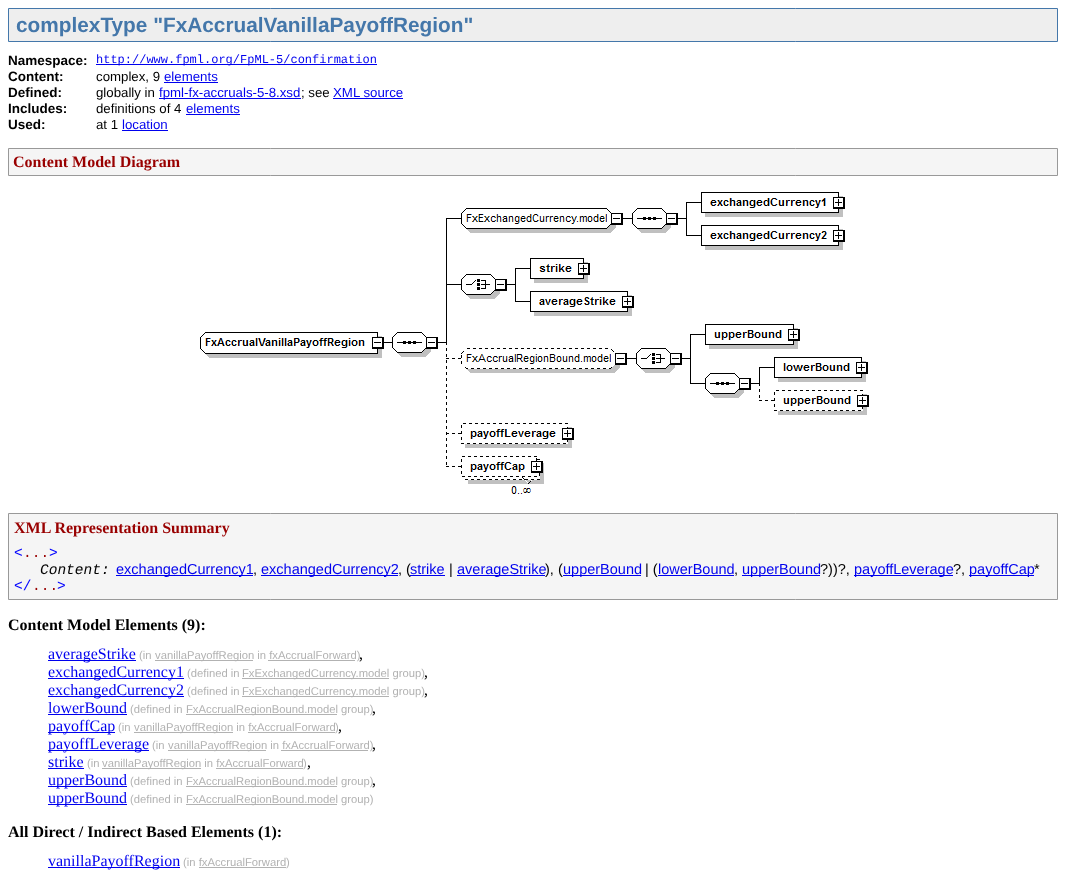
<!DOCTYPE html>
<meta charset="utf-8">
<style>body { margin: 0 } canvas { display: block }</style>
<canvas id="canvas" width="1066" height="873"></canvas>
<img id="img1" src="images/1.png" hidden>
<script>
window.onload = function () {
    const canvas = document.getElementById('canvas');
    const context = canvas.getContext('2d');
    context.miterLimit = 4;
    context.fontKerning = 'normal';

    context.fillStyle = 'rgb(255, 255, 255)';
    context.fillRect(0, 0, 1066, 873);
    context.fillStyle = 'rgb(238, 238, 238)';
    context.beginPath();
    context.rect(8.5, 8.5, 1049, 33);
    context.fill();
    context.strokeStyle = 'rgb(68, 119, 170)';
    context.stroke();
    context.fillStyle = 'rgb(0, 0, 238)';
    context.fillRect(96, 64, 281, 1);
    context.fillRect(164, 82, 54, 1);
    context.fillRect(159, 98, 142, 1);
    context.fillRect(333, 98, 70, 1);
    context.fillRect(186, 114, 54, 1);
    context.fillRect(122, 130, 46, 1);
    context.fillStyle = 'rgb(245, 245, 245)';
    context.beginPath();
    context.rect(8.5, 148.5, 1049, 27);
    context.fill();
    context.strokeStyle = 'rgb(153, 153, 153)';
    context.stroke();
    context.drawImage(document.getElementById('img1'), 200, 192, 669, 302);
    context.beginPath();
    context.rect(8.5, 513.5, 1049, 86);
    context.fill();
    context.stroke();
    context.fillStyle = 'rgb(0, 0, 238)';
    context.fillRect(457, 575, 88, 1);
    context.fillRect(563, 575, 78, 1);
    context.fillRect(854, 575, 99, 1);
    context.fillRect(969, 575, 65, 1);
    context.fillRect(116, 575, 137, 1);
    context.fillRect(261, 575, 137, 1);
    context.fillRect(658, 575, 76, 1);
    context.fillRect(742, 575, 78, 1);
    context.fillRect(48, 660, 88, 1);
    context.fillStyle = 'rgb(178, 178, 178)';
    context.fillRect(155, 660, 98, 1);
    context.fillRect(268, 660, 87, 1);
    context.fillStyle = 'rgb(0, 0, 238)';
    context.fillRect(48, 678, 136, 1);
    context.fillStyle = 'rgb(178, 178, 178)';
    context.fillRect(242, 678, 147, 1);
    context.fillStyle = 'rgb(0, 0, 238)';
    context.fillRect(48, 696, 136, 1);
    context.fillStyle = 'rgb(178, 178, 178)';
    context.fillRect(242, 696, 147, 1);
    context.fillStyle = 'rgb(0, 0, 238)';
    context.fillRect(48, 714, 79, 1);
    context.fillStyle = 'rgb(178, 178, 178)';
    context.fillRect(186, 714, 151, 1);
    context.fillStyle = 'rgb(0, 0, 238)';
    context.fillRect(48, 732, 67, 1);
    context.fillStyle = 'rgb(178, 178, 178)';
    context.fillRect(134, 732, 99, 1);
    context.fillRect(248, 732, 87, 1);
    context.fillStyle = 'rgb(0, 0, 238)';
    context.fillRect(48, 750, 101, 1);
    context.fillStyle = 'rgb(178, 178, 178)';
    context.fillRect(168, 750, 98, 1);
    context.fillRect(281, 750, 87, 1);
    context.fillStyle = 'rgb(0, 0, 238)';
    context.fillRect(48, 768, 36, 1);
    context.fillStyle = 'rgb(178, 178, 178)';
    context.fillRect(102, 768, 99, 1);
    context.fillRect(216, 768, 87, 1);
    context.fillStyle = 'rgb(0, 0, 238)';
    context.fillRect(48, 786, 79, 1);
    context.fillStyle = 'rgb(178, 178, 178)';
    context.fillRect(186, 786, 151, 1);
    context.fillStyle = 'rgb(0, 0, 238)';
    context.fillRect(48, 804, 79, 1);
    context.fillStyle = 'rgb(178, 178, 178)';
    context.fillRect(186, 804, 151, 1);
    context.fillStyle = 'rgb(0, 0, 238)';
    context.fillRect(48, 867, 132, 1);
    context.fillStyle = 'rgb(178, 178, 178)';
    context.fillRect(199, 867, 87, 1);
    context.font = 'bold 20.8px Liberation Sans';
    context.fillStyle = 'rgb(68, 119, 170)';
    context.fillText('complexType "FxAccrualVanillaPayoffRegion"', 16, 32);
    context.font = 'bold 13.5px Liberation Sans';
    context.fillStyle = 'rgb(0, 0, 0)';
    context.fillText('Namespace:', 8, 65);
    context.font = '12px Liberation Mono';
    context.fillStyle = 'rgb(0, 0, 238)';
    context.fillText('http://www.fpml.org/FpML-5/confirmation', 96, 63);
    context.font = 'bold 13.5px Liberation Sans';
    context.fillStyle = 'rgb(0, 0, 0)';
    context.fillText('Content:', 8, 81);
    context.font = '13.25px Liberation Sans';
    context.fillText('complex, 9', 96, 81);
    context.fillStyle = 'rgb(0, 0, 238)';
    context.fillText('elements', 164, 81);
    context.font = 'bold 13.5px Liberation Sans';
    context.fillStyle = 'rgb(0, 0, 0)';
    context.fillText('Defined:', 8, 97);
    context.font = '13.25px Liberation Sans';
    context.fillText('globally in', 96, 97);
    context.fillStyle = 'rgb(0, 0, 238)';
    context.fillText('fpml-fx-accruals-5-8.xsd', 159, 97);
    context.fillStyle = 'rgb(0, 0, 0)';
    context.fillText('; see', 301, 97);
    context.fillStyle = 'rgb(0, 0, 238)';
    context.fillText('XML source', 333, 97);
    context.font = 'bold 13.5px Liberation Sans';
    context.fillStyle = 'rgb(0, 0, 0)';
    context.fillText('Includes:', 8, 113);
    context.font = '13.25px Liberation Sans';
    context.fillText('definitions of 4', 96, 113);
    context.fillStyle = 'rgb(0, 0, 238)';
    context.fillText('elements', 186, 113);
    context.font = 'bold 13.5px Liberation Sans';
    context.fillStyle = 'rgb(0, 0, 0)';
    context.fillText('Used:', 8, 129);
    context.font = '13.25px Liberation Sans';
    context.fillText('at 1', 96, 129);
    context.fillStyle = 'rgb(0, 0, 238)';
    context.fillText('location', 122, 129);
    context.font = 'bold 16px Liberation Serif';
    context.fillStyle = 'rgb(153, 0, 0)';
    context.fillText('Content Model Diagram', 13, 167);
    context.fillText('XML Representation Summary', 14, 533);
    context.font = '14.5px Liberation Mono';
    context.fillStyle = 'rgb(0, 0, 255)';
    context.fillText('<', 14, 557);
    context.fillStyle = 'rgb(153, 0, 0)';
    context.fillText('...', 23, 557);
    context.fillStyle = 'rgb(0, 0, 255)';
    context.fillText('>', 49, 557);
    context.font = 'italic 14.5px Liberation Mono';
    context.fillStyle = 'rgb(0, 0, 0)';
    context.fillText('Content:', 40, 574);
    context.font = '14.5px Liberation Sans';
    context.fillStyle = 'rgb(0, 0, 238)';
    context.fillText('exchangedCurrency1', 116, 574);
    context.fillText('exchangedCurrency2', 261, 574);
    context.fillStyle = 'rgb(0, 0, 0)';
    context.fillText(', (', 398, 574);
    context.fillStyle = 'rgb(0, 0, 238)';
    context.fillRect(410, 575, 35, 1);
    context.fillText('strike', 410, 574);
    context.fillStyle = 'rgb(0, 0, 0)';
    context.fillText('|', 449, 574);
    context.fillStyle = 'rgb(0, 0, 238)';
    context.fillText('averageStrike', 457, 574);
    context.fillStyle = 'rgb(0, 0, 0)';
    context.fillText('), (', 545, 574);
    context.fillStyle = 'rgb(0, 0, 238)';
    context.fillText('upperBound', 563, 574);
    context.fillStyle = 'rgb(0, 0, 0)';
    context.fillText('| (', 645, 574);
    context.fillStyle = 'rgb(0, 0, 238)';
    context.fillText('lowerBound', 658, 574);
    context.fillText('upperBound', 742, 574);
    context.fillStyle = 'rgb(0, 0, 0)';
    context.fillText('?))?,', 820, 574);
    context.fillStyle = 'rgb(0, 0, 238)';
    context.fillText('payoffLeverage', 854, 574);
    context.fillStyle = 'rgb(0, 0, 0)';
    context.fillText('?,', 953, 574);
    context.fillStyle = 'rgb(0, 0, 238)';
    context.fillText('payoffCap', 969, 574);
    context.fillStyle = 'rgb(0, 0, 0)';
    context.fillText('*', 1034, 574);
    context.fillText(',', 253, 574);
    context.fillText(',', 734, 574);
    context.font = '14.5px Liberation Mono';
    context.fillStyle = 'rgb(0, 0, 255)';
    context.fillText('<\/', 14, 590);
    context.fillStyle = 'rgb(153, 0, 0)';
    context.fillText('...', 32, 590);
    context.fillStyle = 'rgb(0, 0, 255)';
    context.fillText('>', 57, 590);
    context.font = 'bold 16px Liberation Serif';
    context.fillStyle = 'rgb(0, 0, 0)';
    context.fillText('Content Model Elements (9):', 8, 630);
    context.font = '16px Liberation Serif';
    context.fillStyle = 'rgb(0, 0, 238)';
    context.fillText('averageStrike', 48, 659);
    context.font = '11.25px Liberation Sans';
    context.fillStyle = 'rgb(178, 178, 178)';
    context.fillText('(in', 139, 659);
    context.fillText('vanillaPayoffRegion in fxAccrualForward)', 155, 659);
    context.font = '16px Liberation Serif';
    context.fillStyle = 'rgb(0, 0, 0)';
    context.fillText(',', 359, 659);
    context.fillStyle = 'rgb(0, 0, 238)';
    context.fillText('exchangedCurrency1', 48, 677);
    context.font = '11.25px Liberation Sans';
    context.fillStyle = 'rgb(178, 178, 178)';
    context.fillText('(defined in', 187, 677);
    context.fillText('FxExchangedCurrency.model group)', 242, 677);
    context.font = '16px Liberation Serif';
    context.fillStyle = 'rgb(0, 0, 0)';
    context.fillText(',', 424, 677);
    context.fillStyle = 'rgb(0, 0, 238)';
    context.fillText('exchangedCurrency2', 48, 695);
    context.font = '11.25px Liberation Sans';
    context.fillStyle = 'rgb(178, 178, 178)';
    context.fillText('(defined in', 187, 695);
    context.fillText('FxExchangedCurrency.model group)', 242, 695);
    context.font = '16px Liberation Serif';
    context.fillStyle = 'rgb(0, 0, 0)';
    context.fillText(',', 424, 695);
    context.fillStyle = 'rgb(0, 0, 238)';
    context.fillText('lowerBound', 48, 713);
    context.font = '11.25px Liberation Sans';
    context.fillStyle = 'rgb(178, 178, 178)';
    context.fillText('(defined in', 130, 713);
    context.fillText('FxAccrualRegionBound.model group)', 186, 713);
    context.font = '16px Liberation Serif';
    context.fillStyle = 'rgb(0, 0, 0)';
    context.fillText(',', 372, 713);
    context.fillStyle = 'rgb(0, 0, 238)';
    context.fillText('payoffCap', 48, 731);
    context.font = '11.25px Liberation Sans';
    context.fillStyle = 'rgb(178, 178, 178)';
    context.fillText('(in', 118, 731);
    context.fillText('vanillaPayoffRegion in fxAccrualForward', 134, 731);
    context.fillText(')', 335, 731);
    context.font = '16px Liberation Serif';
    context.fillStyle = 'rgb(0, 0, 0)';
    context.fillText(',', 338, 731);
    context.fillStyle = 'rgb(0, 0, 238)';
    context.fillText('payoffLeverage', 48, 749);
    context.font = '11.25px Liberation Sans';
    context.fillStyle = 'rgb(178, 178, 178)';
    context.fillText('(in', 152, 749);
    context.fillText('vanillaPayoffRegion in fxAccrualForward)', 168, 749);
    context.font = '16px Liberation Serif';
    context.fillStyle = 'rgb(0, 0, 0)';
    context.fillText(',', 372, 749);
    context.fillStyle = 'rgb(0, 0, 238)';
    context.fillText('strike', 48, 767);
    context.font = '11.25px Liberation Sans';
    context.fillStyle = 'rgb(178, 178, 178)';
    context.fillText('(in', 87, 767);
    context.fillText('vanillaPayoffRegion in fxAccrualForward', 102, 767);
    context.fillText(')', 303, 767);
    context.font = '16px Liberation Serif';
    context.fillStyle = 'rgb(0, 0, 0)';
    context.fillText(',', 307, 767);
    context.fillStyle = 'rgb(0, 0, 238)';
    context.fillText('upperBound', 48, 785);
    context.font = '11.25px Liberation Sans';
    context.fillStyle = 'rgb(178, 178, 178)';
    context.fillText('(defined in', 130, 785);
    context.fillText('FxAccrualRegionBound.model group)', 186, 785);
    context.font = '16px Liberation Serif';
    context.fillStyle = 'rgb(0, 0, 0)';
    context.fillText(',', 372, 785);
    context.fillStyle = 'rgb(0, 0, 238)';
    context.fillText('upperBound', 48, 803);
    context.font = '11.25px Liberation Sans';
    context.fillStyle = 'rgb(178, 178, 178)';
    context.fillText('(defined in', 130, 803);
    context.fillText('FxAccrualRegionBound.model group)', 186, 803);
    context.font = 'bold 16px Liberation Serif';
    context.fillStyle = 'rgb(0, 0, 0)';
    context.fillText('All Direct / Indirect Based Elements (1):', 8, 837);
    context.font = '16px Liberation Serif';
    context.fillStyle = 'rgb(0, 0, 238)';
    context.fillText('vanillaPayoffRegion', 48, 866);
    context.font = '11.25px Liberation Sans';
    context.fillStyle = 'rgb(178, 178, 178)';
    context.fillText('(in fxAccrualForward', 183, 866);
    context.fillText(')', 286, 866);
};
</script>
